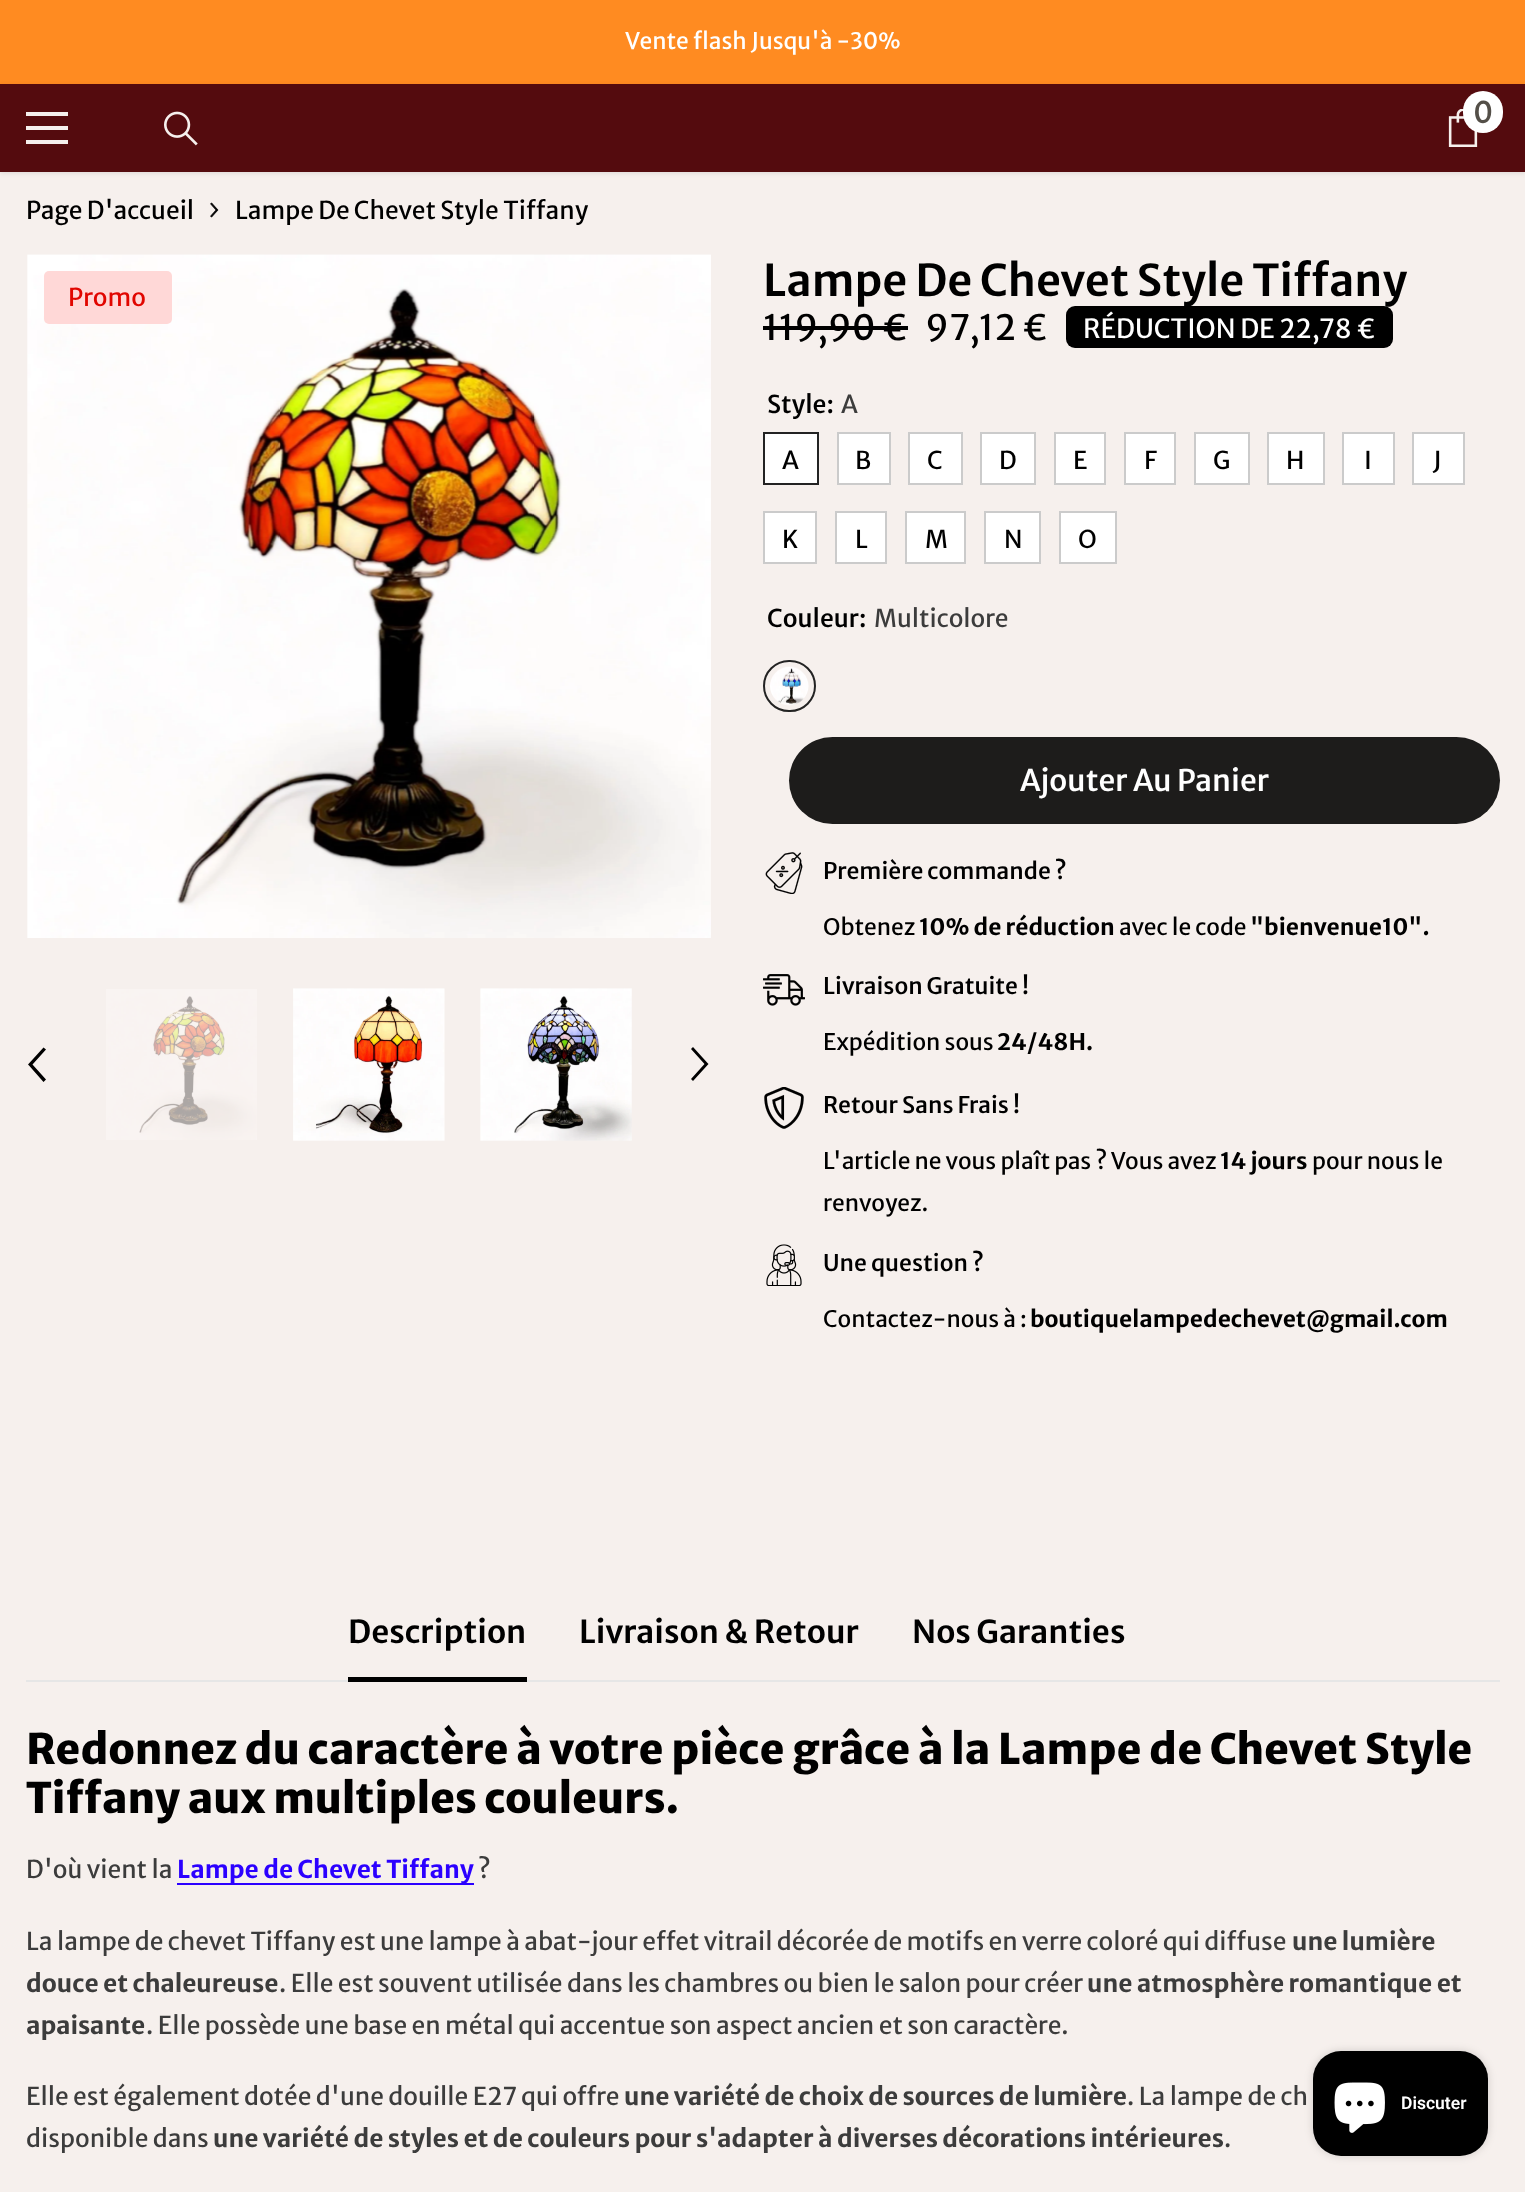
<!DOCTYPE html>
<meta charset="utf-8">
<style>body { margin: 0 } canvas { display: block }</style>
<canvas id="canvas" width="1525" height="2192"></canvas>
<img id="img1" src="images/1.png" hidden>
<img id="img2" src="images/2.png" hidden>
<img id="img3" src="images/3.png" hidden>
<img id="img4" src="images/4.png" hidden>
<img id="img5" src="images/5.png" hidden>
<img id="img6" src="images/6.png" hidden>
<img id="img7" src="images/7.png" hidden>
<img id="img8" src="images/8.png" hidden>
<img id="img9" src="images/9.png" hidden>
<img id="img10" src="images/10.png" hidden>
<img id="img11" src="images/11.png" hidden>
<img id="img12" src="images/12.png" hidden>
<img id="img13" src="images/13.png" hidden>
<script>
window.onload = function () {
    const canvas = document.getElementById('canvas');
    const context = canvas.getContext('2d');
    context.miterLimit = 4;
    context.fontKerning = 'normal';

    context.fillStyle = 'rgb(246, 240, 237)';
    context.fillRect(0, 0, 1525, 2192);
    context.fillStyle = 'rgb(255, 139, 33)';
    context.fillRect(0, 0, 1525, 84);
    context.fillStyle = 'rgba(0, 0, 0, 0.1)';
    context.filter = 'blur(2.5px)';
    context.beginPath();
    context.rect(0, 86, 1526, 87);
    context.fill();
    context.filter = 'none';
    context.fillStyle = 'rgb(84, 11, 14)';
    context.fillRect(0, 84, 1525, 88);
    context.fillStyle = 'rgb(246, 240, 237)';
    context.fillRect(26, 126, 42, 4);
    context.fillRect(26, 112, 42, 4);
    context.fillRect(26, 140, 42, 4);
    context.drawImage(document.getElementById('img1'), 164, 111, 34, 35);
    context.drawImage(document.getElementById('img2'), 1448, 109, 30, 38);
    context.fillStyle = 'rgb(255, 255, 255)';
    context.beginPath();
    context.roundRect(1463, 91, 40, 42, 20);
    context.fill();
    context.drawImage(document.getElementById('img3'), 210, 202, 9, 16);
    context.drawImage(document.getElementById('img4'), 27, 254, 684, 684);
    context.fillStyle = 'rgb(255, 216, 215)';
    context.beginPath();
    context.roundRect(44, 271, 128, 53, 5);
    context.fill();
    context.fillStyle = 'rgb(0, 0, 0)';
    context.beginPath();
    context.moveTo(43.5, 1082);
    context.lineTo(46, 1079.5);
    context.lineTo(32.5, 1064.5);
    context.lineTo(46, 1049.5);
    context.lineTo(43.5, 1047.5);
    context.lineTo(28, 1064.5);
    context.lineTo(29, 1065.5);
    context.closePath();
    context.fill();
    context.drawImage(document.getElementById('img5'), 106, 989, 151, 151);
    context.drawImage(document.getElementById('img6'), 293, 988, 152, 153);
    context.drawImage(document.getElementById('img7'), 480, 988, 152, 153);
    context.beginPath();
    context.moveTo(693, 1047);
    context.lineTo(691, 1049);
    context.lineTo(704.5, 1064);
    context.lineTo(691, 1079);
    context.lineTo(693, 1081);
    context.lineTo(708.5, 1064);
    context.lineTo(707.5, 1063);
    context.closePath();
    context.fill();
    context.fillRect(763, 326, 145, 4);
    context.beginPath();
    context.roundRect(1066, 306, 327, 42, 9);
    context.fill();
    context.fillStyle = 'rgb(255, 255, 255)';
    context.beginPath();
    context.rect(764, 433, 54, 51);
    context.fill();
    context.strokeStyle = 'rgb(35, 35, 35)';
    context.lineWidth = 2;
    context.stroke();
    context.beginPath();
    context.rect(838, 433, 52, 51);
    context.fill();
    context.strokeStyle = 'rgb(203, 203, 203)';
    context.stroke();
    context.beginPath();
    context.rect(909, 433, 53, 51);
    context.fill();
    context.stroke();
    context.beginPath();
    context.rect(981, 433, 54, 51);
    context.fill();
    context.stroke();
    context.beginPath();
    context.rect(1055, 433, 50, 51);
    context.fill();
    context.stroke();
    context.beginPath();
    context.rect(1125, 433, 50, 51);
    context.fill();
    context.stroke();
    context.beginPath();
    context.rect(1195, 433, 54, 51);
    context.fill();
    context.stroke();
    context.beginPath();
    context.rect(1268, 433, 56, 51);
    context.fill();
    context.stroke();
    context.beginPath();
    context.rect(1343, 433, 51, 51);
    context.fill();
    context.stroke();
    context.beginPath();
    context.rect(1413, 433, 51, 51);
    context.fill();
    context.stroke();
    context.beginPath();
    context.rect(764, 512, 52, 51);
    context.fill();
    context.stroke();
    context.beginPath();
    context.rect(836, 512, 50, 51);
    context.fill();
    context.stroke();
    context.beginPath();
    context.rect(906, 512, 59, 51);
    context.fill();
    context.stroke();
    context.beginPath();
    context.rect(985, 512, 55, 51);
    context.fill();
    context.stroke();
    context.beginPath();
    context.rect(1060, 512, 56, 51);
    context.fill();
    context.stroke();
    context.beginPath();
    context.roundRect(764, 661, 51, 50, 25);
    context.strokeStyle = 'rgb(35, 35, 35)';
    context.stroke();
    context.drawImage(document.getElementById('img8'), 770, 666, 39, 40);
    context.fillStyle = 'rgb(29, 28, 27)';
    context.beginPath();
    context.roundRect(789, 737, 711, 87, 43.5);
    context.fill();
    context.drawImage(document.getElementById('img9'), 765, 852, 38, 42);
    context.drawImage(document.getElementById('img10'), 763, 974, 42, 32);
    context.drawImage(document.getElementById('img11'), 764, 1087, 40, 42);
    context.drawImage(document.getElementById('img12'), 766, 1244, 36, 42);
    context.fillStyle = 'rgb(230, 230, 230)';
    context.fillRect(26, 1680, 1474, 2);
    context.fillStyle = 'rgb(0, 0, 0)';
    context.fillRect(348, 1677, 179, 5);
    context.fillStyle = 'rgb(43, 0, 255)';
    context.fillRect(177, 1883, 297, 2);
    context.fillStyle = 'rgba(0, 0, 0, 0.15)';
    context.filter = 'blur(4.5px)';
    context.beginPath();
    context.roundRect(1313, 2051, 175, 105, 28);
    context.fill();
    context.filter = 'none';
    context.fillStyle = 'rgb(0, 0, 0)';
    context.beginPath();
    context.roundRect(1313, 2051, 175, 105, 28);
    context.fill();
    context.drawImage(document.getElementById('img13'), 1334, 2082, 51, 51);
    context.font = '22.75px Merriweather Sans';
    context.fillStyle = 'rgb(255, 255, 255)';
    context.fillText('Vente flash Jusqu\'à -30%', 625, 49);
    context.font = '29.75px Merriweather Sans';
    context.fillStyle = 'rgb(84, 79, 72)';
    context.fillText('0', 1473, 123);
    context.font = '24.5px Merriweather Sans';
    context.fillStyle = 'rgb(0, 0, 0)';
    context.fillText('Page D\'accueil', 26, 219);
    context.fillText('Lampe De Chevet Style Tiffany', 235, 219);
    context.fillStyle = 'rgb(225, 6, 0)';
    context.fillText('Promo', 68, 306);
    context.font = '600 43.75px Merriweather Sans';
    context.fillStyle = 'rgb(0, 0, 0)';
    context.fillText('Lampe De Chevet Style Tiffany', 763, 296);
    context.font = '35px Merriweather Sans';
    context.fillText('119,90 €', 763, 340);
    context.fillText('97,12 €', 925, 340);
    context.font = '26.25px Merriweather Sans';
    context.fillStyle = 'rgb(255, 255, 255)';
    context.fillText('RÉDUCTION DE 22,78 €', 1083, 338);
    context.font = '500 24.5px Merriweather Sans';
    context.fillStyle = 'rgb(0, 0, 0)';
    context.fillText('Style:', 767, 413);
    context.font = '24.5px Merriweather Sans';
    context.fillStyle = 'rgb(60, 60, 60)';
    context.fillText('A', 841, 413);
    context.fillStyle = 'rgb(0, 0, 0)';
    context.fillText('A', 782, 469);
    context.fillText('B', 855, 469);
    context.fillText('C', 927, 469);
    context.fillText('D', 999, 469);
    context.fillText('E', 1073, 469);
    context.fillText('F', 1144, 469);
    context.fillText('G', 1213, 469);
    context.fillText('H', 1286, 469);
    context.fillText('I', 1364, 469);
    context.fillText('J', 1433, 469);
    context.fillText('K', 782, 548);
    context.fillText('L', 855, 548);
    context.fillText('M', 925, 548);
    context.fillText('N', 1004, 548);
    context.fillText('O', 1078, 548);
    context.font = '500 24.5px Merriweather Sans';
    context.fillText('Couleur:', 767, 627);
    context.font = '24.5px Merriweather Sans';
    context.fillStyle = 'rgb(60, 60, 60)';
    context.fillText('Multicolore', 874, 627);
    context.font = '500 29.75px Merriweather Sans';
    context.fillStyle = 'rgb(255, 255, 255)';
    context.fillText('Ajouter Au Panier', 1020, 791);
    context.font = '500 22.75px Merriweather Sans';
    context.fillStyle = 'rgb(0, 0, 0)';
    context.fillText('Première commande ?', 823, 879);
    context.font = '22.75px Merriweather Sans';
    context.fillText('Obtenez', 823, 935);
    context.font = 'bold 22.75px Merriweather Sans';
    context.fillText('10% de réduction', 919, 935);
    context.font = '22.75px Merriweather Sans';
    context.fillText('avec le code', 1119, 935);
    context.font = 'bold 22.75px Merriweather Sans';
    context.fillText('"bienvenue10".', 1250, 935);
    context.font = '500 22.75px Merriweather Sans';
    context.fillText('Livraison Gratuite !', 823, 994);
    context.font = '22.75px Merriweather Sans';
    context.fillText('Expédition sous', 823, 1050);
    context.font = 'bold 22.75px Merriweather Sans';
    context.fillText('24/48H.', 997, 1050);
    context.font = '500 22.75px Merriweather Sans';
    context.fillText('Retour Sans Frais !', 823, 1113);
    context.font = '22.75px Merriweather Sans';
    context.fillText('L\'article ne vous plaît pas ? Vous avez', 823, 1169);
    context.font = 'bold 22.75px Merriweather Sans';
    context.fillText('14 jours', 1220, 1169);
    context.font = '22.75px Merriweather Sans';
    context.fillText('pour nous le', 1312, 1169);
    context.fillText('renvoyez.', 823, 1211);
    context.font = '500 22.75px Merriweather Sans';
    context.fillText('Une question ?', 823, 1271);
    context.font = '22.75px Merriweather Sans';
    context.fillText('Contactez-nous à :', 823, 1327);
    context.font = 'bold 22.75px Merriweather Sans';
    context.fillText('boutiquelampedechevet@gmail.com', 1030, 1327);
    context.font = '600 31.5px Merriweather Sans';
    context.fillText('Description', 348, 1643);
    context.fillText('Livraison & Retour', 579, 1643);
    context.fillText('Nos Garanties', 912, 1643);
    context.font = '800 42px Merriweather Sans';
    context.fillText('Redonnez du caractère à votre pièce grâce à la Lampe de Chevet Style', 26, 1764);
    context.fillText('Tiffany aux multiples couleurs.', 26, 1813);
    context.font = '24.5px Merriweather Sans';
    context.fillStyle = 'rgb(60, 60, 60)';
    context.fillText('D\'où vient la', 26, 1878);
    context.font = 'bold 24.5px Merriweather Sans';
    context.fillStyle = 'rgb(43, 0, 255)';
    context.fillText('Lampe de Chevet Tiffany', 177, 1878);
    context.font = '24.5px Merriweather Sans';
    context.fillStyle = 'rgb(60, 60, 60)';
    context.fillText('?', 478, 1878);
    context.fillText('La lampe de chevet Tiffany est une lampe à abat-jour effet vitrail décorée de motifs en verre coloré qui diffuse', 26, 1950);
    context.font = 'bold 24.5px Merriweather Sans';
    context.fillText('une lumière', 1292, 1950);
    context.fillText('douce et chaleureuse', 26, 1992);
    context.font = '24.5px Merriweather Sans';
    context.fillText('. Elle est souvent utilisée dans les chambres ou bien le salon pour créer', 279, 1992);
    context.font = 'bold 24.5px Merriweather Sans';
    context.fillText('une atmosphère romantique et', 1087, 1992);
    context.fillText('apaisante', 26, 2034);
    context.font = '24.5px Merriweather Sans';
    context.fillText('. Elle possède une base en métal qui accentue son aspect ancien et son caractère.', 146, 2034);
    context.fillText('Elle est également dotée d\'une douille E27 qui offre', 26, 2105);
    context.font = 'bold 24.5px Merriweather Sans';
    context.fillText('une variété de choix de sources de lumière', 624, 2105);
    context.font = '24.5px Merriweather Sans';
    context.fillText('. La lampe de ch', 1127, 2105);
    context.fillText('disponible dans', 26, 2147);
    context.font = 'bold 24.5px Merriweather Sans';
    context.fillText('une variété de styles et de couleurs pour s\'adapter à diverses décorations intérieures', 213, 2147);
    context.font = '24.5px Merriweather Sans';
    context.fillText('.', 1224, 2147);
    context.font = '600 17.5px Roboto';
    context.fillStyle = 'rgb(255, 255, 255)';
    context.fillText('Discuter', 1401, 2109);
};
</script>
